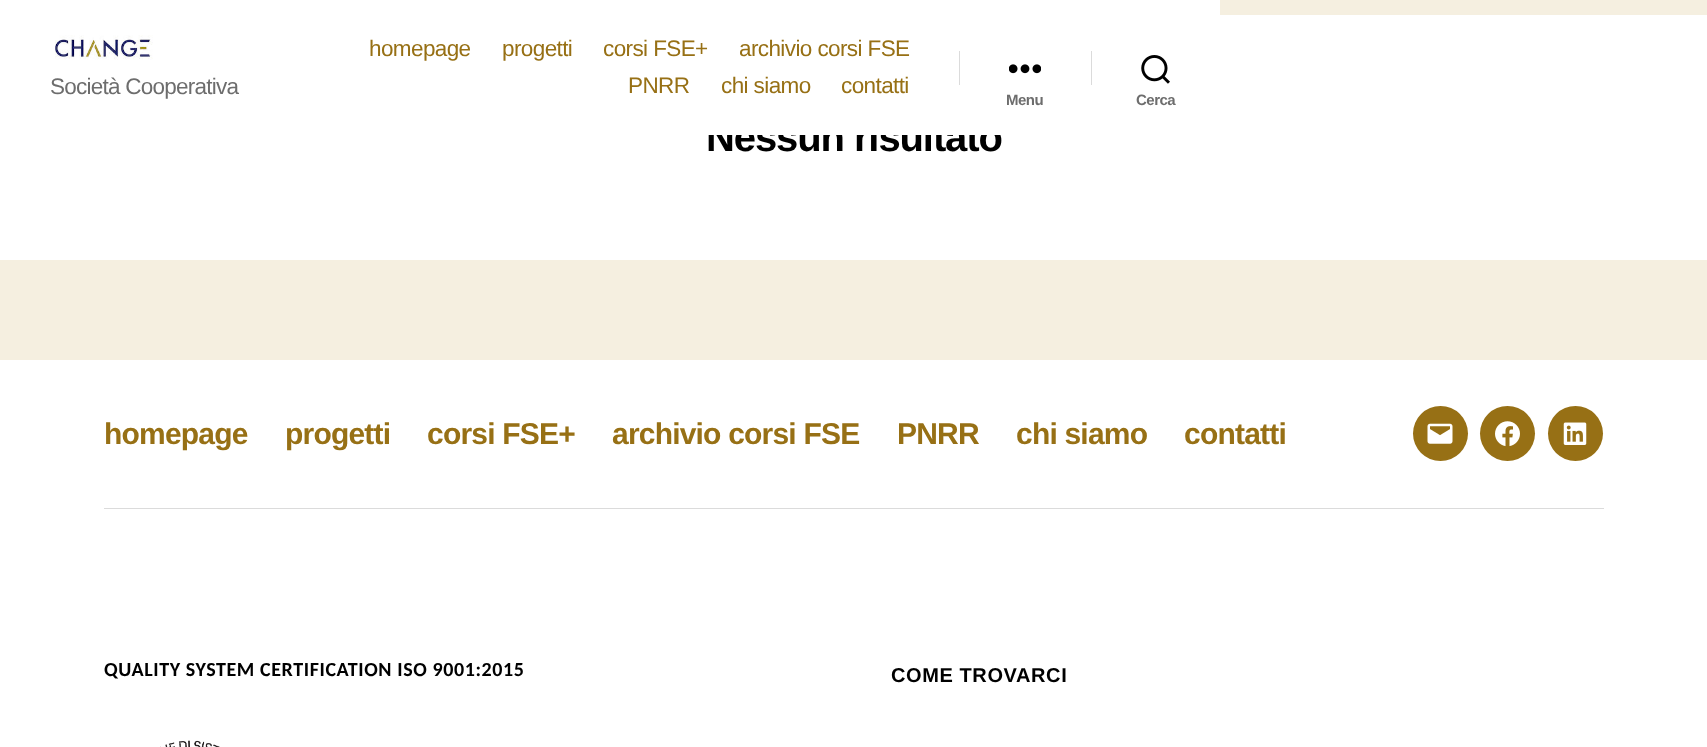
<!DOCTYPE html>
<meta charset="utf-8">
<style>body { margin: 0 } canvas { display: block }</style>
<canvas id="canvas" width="1707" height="747"></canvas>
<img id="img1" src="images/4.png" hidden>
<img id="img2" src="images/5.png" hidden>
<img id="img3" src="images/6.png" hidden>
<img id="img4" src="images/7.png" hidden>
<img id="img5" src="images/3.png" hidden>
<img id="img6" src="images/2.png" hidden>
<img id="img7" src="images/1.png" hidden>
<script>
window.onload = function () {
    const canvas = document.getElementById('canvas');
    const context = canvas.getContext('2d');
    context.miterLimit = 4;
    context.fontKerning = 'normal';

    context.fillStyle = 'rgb(245, 239, 224)';
    context.fillRect(0, 0, 1707, 747);
    context.fillStyle = 'rgb(255, 255, 255)';
    context.fillRect(0, 15, 1707, 245);
    context.fillRect(0, 360, 1707, 387);
    context.fillStyle = 'rgb(219, 219, 219)';
    context.fillRect(104, 508, 1500, 1);
    context.fillStyle = 'rgb(151, 112, 21)';
    context.beginPath();
    context.arc(1440.5, 433.5, 27.5, 0, 2 * Math.PI);
    context.fill();
    context.drawImage(document.getElementById('img1'), 1427, 423, 26, 21);
    context.beginPath();
    context.arc(1507.5, 433.5, 27.5, 0, 2 * Math.PI);
    context.fill();
    context.drawImage(document.getElementById('img2'), 1495, 421, 25, 26);
    context.beginPath();
    context.arc(1575.5, 433.5, 27.5, 0, 2 * Math.PI);
    context.fill();
    context.drawImage(document.getElementById('img3'), 1563, 422, 24, 23);
    context.drawImage(document.getElementById('img4'), 160, 740, 60, 7);
    context.letterSpacing = '-1.1px';
    context.font = 'bold 40px Liberation Sans';
    context.fillStyle = 'rgb(0, 0, 0)';
    context.fillText('Nessun risultato', 706, 151);
    context.fillStyle = 'rgb(255, 255, 255)';
    context.fillRect(0, 0, 1220, 135);
    context.drawImage(document.getElementById('img5'), 1141, 55, 29, 29);
    context.drawImage(document.getElementById('img6'), 1009, 64, 32, 10);
    context.letterSpacing = '-0.5px';
    context.font = 'bold 15px Liberation Sans';
    context.fillStyle = 'rgb(109, 109, 109)';
    context.fillText('Cerca', 1136, 105);
    context.fillStyle = 'rgb(219, 219, 219)';
    context.fillRect(1091, 51, 1, 34);
    context.fillStyle = 'rgb(109, 109, 109)';
    context.fillText('Menu', 1006, 105);
    context.fillStyle = 'rgb(219, 219, 219)';
    context.fillRect(959, 51, 1, 34);
    context.letterSpacing = '-0.6px';
    context.font = '22.5px Liberation Sans';
    context.fillStyle = 'rgb(151, 112, 21)';
    context.fillText('contatti', 841, 93);
    context.fillText('chi siamo', 721, 93);
    context.fillText('PNRR', 628, 93);
    context.fillText('archivio corsi FSE', 739, 56);
    context.fillText('corsi FSE+', 603, 56);
    context.fillText('progetti', 502, 56);
    context.fillText('homepage', 369, 56);
    context.letterSpacing = '-0.75px';
    context.fillStyle = 'rgb(109, 109, 109)';
    context.fillText('Società Cooperativa', 50, 94);
    context.drawImage(document.getElementById('img7'), 55, 35, 98, 25);
    context.letterSpacing = '-0.8px';
    context.font = 'bold 30px Liberation Sans';
    context.fillStyle = 'rgb(151, 112, 21)';
    context.fillText('homepage', 104, 444);
    context.fillText('progetti', 285, 444);
    context.fillText('corsi FSE+', 427, 444);
    context.fillText('archivio corsi FSE', 612, 444);
    context.fillText('PNRR', 897, 444);
    context.fillText('chi siamo', 1016, 444);
    context.fillText('contatti', 1184, 444);
    context.letterSpacing = '0.6px';
    context.font = 'bold 20px Carlito';
    context.fillStyle = 'rgb(0, 0, 0)';
    context.fillText('QUALITY SYSTEM CERTIFICATION ISO 9001:2015', 104, 676);
    context.font = 'bold 20px Liberation Sans';
    context.fillText('COME TROVARCI', 891, 682);
};
</script>
